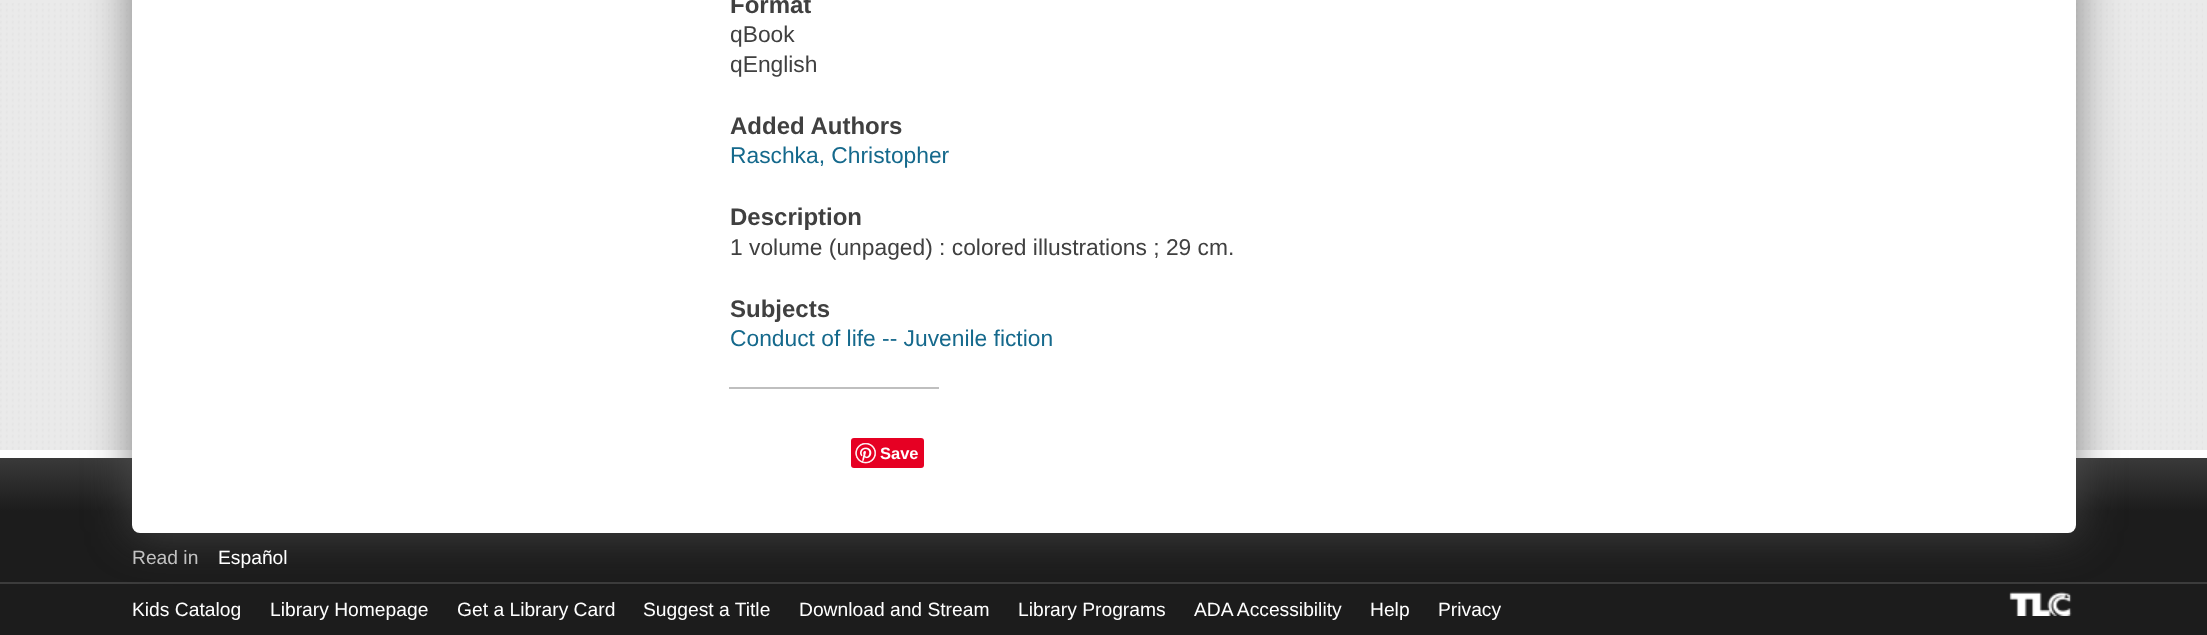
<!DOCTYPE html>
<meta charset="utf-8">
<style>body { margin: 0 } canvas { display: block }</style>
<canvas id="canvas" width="2207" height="635"></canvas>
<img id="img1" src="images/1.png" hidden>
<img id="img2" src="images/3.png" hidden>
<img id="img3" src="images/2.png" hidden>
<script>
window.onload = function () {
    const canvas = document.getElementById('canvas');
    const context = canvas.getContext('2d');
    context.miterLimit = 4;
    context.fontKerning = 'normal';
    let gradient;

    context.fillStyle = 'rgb(234, 234, 234)';
    context.fillRect(0, 0, 2207, 635);
    context.drawImage(document.getElementById('img1'), 0, 3, 2203, 447);
    gradient = context.createLinearGradient(1104, 457, 1104, 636);
    gradient.addColorStop(0, 'rgb(58, 58, 58)');
    gradient.addColorStop(0.3, 'rgb(28, 28, 28)');
    context.fillStyle = gradient;
    context.fillRect(0, 458, 2207, 177);
    context.fillStyle = 'rgb(255, 255, 255)';
    context.fillRect(0, 450, 2207, 8);
    context.fillStyle = 'rgb(60, 60, 60)';
    context.fillRect(0, 582, 2207, 2);
    context.drawImage(document.getElementById('img2'), 2009, 591, 63, 25);
    context.fillStyle = 'rgba(85, 85, 85, 0.7)';
    context.filter = 'blur(22.5px)';
    context.beginPath();
    context.roundRect(132, -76, 1944, 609, 8);
    context.fill();
    context.filter = 'none';
    context.fillStyle = 'rgb(255, 255, 255)';
    context.beginPath();
    context.roundRect(132, -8, 1944, 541, 8);
    context.fill();
    context.fillStyle = 'rgb(191, 191, 191)';
    context.fillRect(729, 387, 210, 2);
    context.fillStyle = 'rgb(230, 0, 35)';
    context.beginPath();
    context.roundRect(851, 438, 73, 30, 3);
    context.fill();
    context.drawImage(document.getElementById('img3'), 855, 443, 21, 21);
    context.font = 'bold 24px Liberation Sans';
    context.fillStyle = 'rgb(64, 64, 64)';
    context.fillText('Format', 730, 13);
    context.font = '22.8px Liberation Sans';
    context.fillText('qBook', 730, 42);
    context.fillText('qEnglish', 730, 72);
    context.font = 'bold 24px Liberation Sans';
    context.fillText('Added Authors', 730, 134);
    context.font = '22.8px Liberation Sans';
    context.fillStyle = 'rgb(21, 105, 140)';
    context.fillText('Raschka, Christopher', 730, 163);
    context.font = 'bold 24px Liberation Sans';
    context.fillStyle = 'rgb(64, 64, 64)';
    context.fillText('Description', 730, 225);
    context.font = '22.8px Liberation Sans';
    context.fillText('1 volume (unpaged) : colored illustrations ; 29 cm.', 730, 255);
    context.font = 'bold 24px Liberation Sans';
    context.fillText('Subjects', 730, 317);
    context.font = '22.8px Liberation Sans';
    context.fillStyle = 'rgb(21, 105, 140)';
    context.fillText('Conduct of life -- Juvenile fiction', 730, 346);
    context.font = 'bold 16.5px Liberation Sans';
    context.fillStyle = 'rgb(255, 255, 255)';
    context.fillText('Save', 880, 459);
    context.font = '19.25px Liberation Sans';
    context.fillStyle = 'rgb(194, 194, 194)';
    context.fillText('Read in', 132, 564);
    context.fillStyle = 'rgb(255, 255, 255)';
    context.fillText('Español', 218, 564);
    context.fillText('Kids Catalog', 132, 616);
    context.fillText('Library Homepage', 270, 616);
    context.fillText('Get a Library Card', 457, 616);
    context.fillText('Suggest a Title', 643, 616);
    context.fillText('Download and Stream', 799, 616);
    context.fillText('Library Programs', 1018, 616);
    context.fillText('ADA Accessibility', 1194, 616);
    context.fillText('Help', 1370, 616);
    context.fillText('Privacy', 1438, 616);
};
</script>
